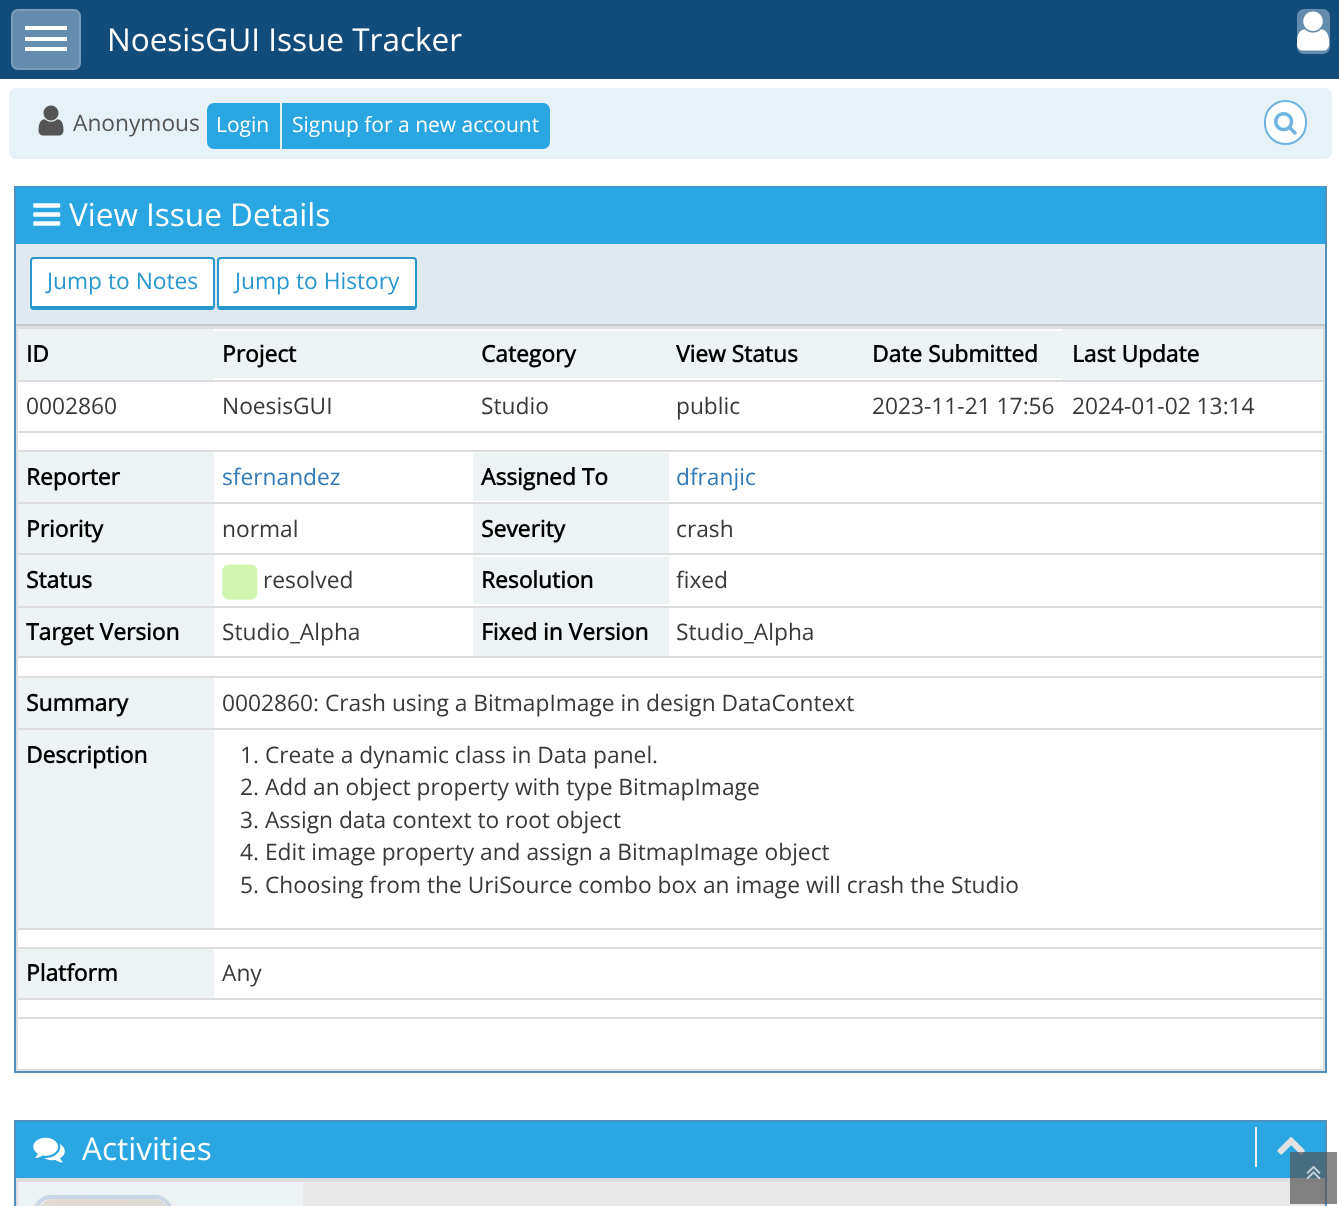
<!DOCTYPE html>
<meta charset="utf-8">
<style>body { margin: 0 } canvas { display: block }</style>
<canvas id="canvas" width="1339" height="1206"></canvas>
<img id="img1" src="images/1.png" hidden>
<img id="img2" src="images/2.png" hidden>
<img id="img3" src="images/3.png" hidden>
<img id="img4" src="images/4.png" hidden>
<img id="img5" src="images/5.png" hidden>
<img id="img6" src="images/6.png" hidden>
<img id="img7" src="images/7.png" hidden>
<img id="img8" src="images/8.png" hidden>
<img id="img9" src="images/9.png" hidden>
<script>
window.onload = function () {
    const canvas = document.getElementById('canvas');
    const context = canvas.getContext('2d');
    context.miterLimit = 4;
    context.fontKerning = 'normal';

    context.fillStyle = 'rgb(255, 255, 255)';
    context.fillRect(0, 0, 1339, 1206);
    context.fillStyle = 'rgb(18, 76, 122)';
    context.fillRect(0, 0, 1339, 79);
    context.fillStyle = 'rgb(100, 140, 174)';
    context.beginPath();
    context.roundRect(11, 9, 70, 61, 7);
    context.fill();
    context.beginPath();
    context.roundRect(12, 10, 68, 59, 6);
    context.strokeStyle = 'rgba(255, 255, 255, 0.15)';
    context.lineWidth = 2;
    context.stroke();
    context.fillStyle = 'rgb(255, 255, 255)';
    context.fillRect(25, 26, 42, 4);
    context.fillRect(25, 37, 42, 4);
    context.fillRect(25, 47, 42, 4);
    context.fillStyle = 'rgb(100, 140, 174)';
    context.beginPath();
    context.roundRect(1297, 9, 33, 45, 7);
    context.fill();
    context.drawImage(document.getElementById('img1'), 1297, 11, 33, 40);
    context.fillStyle = 'rgb(231, 242, 248)';
    context.beginPath();
    context.roundRect(9, 88, 1323, 71, 7);
    context.fill();
    context.drawImage(document.getElementById('img2'), 38, 105, 26, 31);
    context.fillStyle = 'rgb(42, 166, 226)';
    context.beginPath();
    context.roundRect(208, 104, 71, 44, [6, 0, 0, 6]);
    context.fill();
    context.strokeStyle = 'rgb(42, 166, 226)';
    context.stroke();
    context.beginPath();
    context.roundRect(283, 104, 266, 44, [0, 6, 6, 0]);
    context.fill();
    context.stroke();
    context.fillStyle = 'rgb(255, 255, 255)';
    context.beginPath();
    context.roundRect(1265, 101, 41, 43, 20.5);
    context.fill();
    context.strokeStyle = 'rgb(111, 179, 224)';
    context.stroke();
    context.drawImage(document.getElementById('img3'), 1274, 112, 23, 23);
    context.strokeStyle = 'rgb(80, 144, 193)';
    context.strokeRect(15, 187, 1311, 885);
    context.fillStyle = 'rgb(42, 166, 226)';
    context.fillRect(16, 187, 1309, 57);
    context.drawImage(document.getElementById('img4'), 33, 203, 28, 23);
    context.fillStyle = 'rgb(224, 233, 239)';
    context.fillRect(16, 244, 1309, 80);
    context.fillStyle = 'rgb(192, 201, 207)';
    context.fillRect(16, 324, 1309, 2);
    context.fillStyle = 'rgb(255, 255, 255)';
    context.beginPath();
    context.moveTo(33, 259);
    context.lineTo(212, 259);
    context.bezierCurveTo(213, 259, 214, 260, 214, 261);
    context.lineTo(214, 306);
    context.lineTo(32, 306);
    context.lineTo(32, 261);
    context.bezierCurveTo(32, 260, 32, 259, 33, 259);
    context.closePath();
    context.fill();
    context.beginPath();
    context.roundRect(31, 258, 183, 51, 3);
    context.strokeStyle = 'rgb(39, 151, 206)';
    context.stroke();
    context.fillStyle = 'rgb(39, 151, 206)';
    context.fillRect(32, 306, 182, 2);
    context.fillStyle = 'rgb(255, 255, 255)';
    context.beginPath();
    context.moveTo(220, 259);
    context.lineTo(413, 259);
    context.bezierCurveTo(414, 259, 415, 260, 415, 261);
    context.lineTo(415, 306);
    context.lineTo(219, 306);
    context.lineTo(219, 261);
    context.bezierCurveTo(219, 260, 220, 259, 220, 259);
    context.closePath();
    context.fill();
    context.beginPath();
    context.roundRect(218, 258, 198, 51, 3);
    context.stroke();
    context.fillStyle = 'rgb(39, 151, 206)';
    context.fillRect(219, 306, 196, 2);
    context.strokeStyle = 'rgb(221, 221, 221)';
    context.strokeRect(17, 327, 1307, 743);
    context.fillStyle = 'rgb(237, 243, 244)';
    context.fillRect(18, 329, 196, 51);
    context.fillRect(214, 331, 848, 47);
    context.fillRect(1062, 329, 261, 51);
    context.fillStyle = 'rgb(221, 221, 221)';
    context.fillRect(18, 328, 1305, 1);
    context.fillRect(18, 380, 1305, 2);
    context.fillRect(18, 431, 1305, 2);
    context.fillRect(18, 450, 1305, 2);
    context.fillStyle = 'rgb(237, 243, 244)';
    context.fillRect(18, 452, 196, 50);
    context.fillRect(473, 453, 196, 48);
    context.fillStyle = 'rgb(221, 221, 221)';
    context.fillRect(18, 502, 1305, 2);
    context.fillStyle = 'rgb(237, 243, 244)';
    context.fillRect(18, 504, 196, 49);
    context.fillRect(473, 504, 196, 49);
    context.fillStyle = 'rgb(221, 221, 221)';
    context.fillRect(18, 553, 1305, 2);
    context.fillStyle = 'rgb(237, 243, 244)';
    context.fillRect(18, 555, 196, 51);
    context.drawImage(document.getElementById('img5'), 222, 564, 36, 36);
    context.fillRect(473, 557, 196, 47);
    context.fillStyle = 'rgb(221, 221, 221)';
    context.fillRect(18, 606, 1305, 2);
    context.fillStyle = 'rgb(237, 243, 244)';
    context.fillRect(18, 608, 196, 48);
    context.fillRect(473, 608, 196, 48);
    context.fillStyle = 'rgb(221, 221, 221)';
    context.fillRect(18, 656, 1305, 2);
    context.fillStyle = 'rgb(237, 243, 244)';
    context.fillRect(18, 678, 196, 50);
    context.fillStyle = 'rgb(221, 221, 221)';
    context.fillRect(18, 676, 1305, 2);
    context.fillStyle = 'rgb(237, 243, 244)';
    context.fillRect(18, 730, 196, 198);
    context.fillStyle = 'rgb(221, 221, 221)';
    context.fillRect(18, 728, 1305, 2);
    context.fillRect(18, 928, 1305, 2);
    context.fillStyle = 'rgb(237, 243, 244)';
    context.fillRect(18, 949, 196, 49);
    context.fillStyle = 'rgb(221, 221, 221)';
    context.fillRect(18, 947, 1305, 2);
    context.fillRect(18, 998, 1305, 2);
    context.fillRect(18, 1017, 1305, 2);
    context.strokeStyle = 'rgb(80, 144, 193)';
    context.strokeRect(15, 1121, 1311, 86);
    context.fillStyle = 'rgb(42, 166, 226)';
    context.fillRect(16, 1122, 1309, 56);
    context.drawImage(document.getElementById('img6'), 33, 1137, 32, 26);
    context.fillStyle = 'rgb(238, 238, 238)';
    context.fillRect(1255, 1127, 2, 40);
    context.drawImage(document.getElementById('img7'), 1277, 1137, 28, 18);
    context.strokeStyle = 'rgb(221, 221, 221)';
    context.strokeRect(17, 1179, 1307, 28);
    context.fillStyle = 'rgb(232, 232, 232)';
    context.fillRect(303, 1182, 1020, 24);
    context.fillStyle = 'rgb(221, 221, 221)';
    context.fillRect(18, 1180, 1305, 2);
    context.fillStyle = 'rgb(237, 243, 244)';
    context.fillRect(18, 1182, 285, 24);
    context.beginPath();
    context.roundRect(35, 1197, 136, 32, 19);
    context.strokeStyle = 'rgb(201, 214, 229)';
    context.lineWidth = 4;
    context.stroke();
    context.drawImage(document.getElementById('img8'), 40, 1199, 126, 7);
    context.fillStyle = 'rgba(85, 85, 85, 0.7)';
    context.fillRect(1290, 1152, 47, 52);
    context.drawImage(document.getElementById('img9'), 1306, 1165, 15, 15);
    context.font = '31.5px Open Sans';
    context.fillStyle = 'rgb(255, 255, 255)';
    context.fillText('NoesisGUI Issue Tracker', 107, 51);
    context.font = '22.75px Open Sans';
    context.fillStyle = 'rgb(85, 85, 85)';
    context.fillText('Anonymous', 73, 131);
    context.font = '21px Open Sans';
    context.fillStyle = 'rgb(255, 255, 255)';
    context.fillText('Login', 216, 132);
    context.fillText('Signup for a new account', 292, 132);
    context.font = '31.5px Open Sans';
    context.fillText('View Issue Details', 69, 226);
    context.font = '22.75px Open Sans';
    context.fillStyle = 'rgb(39, 151, 206)';
    context.fillText('Jump to Notes', 47, 289);
    context.fillText('Jump to History', 235, 289);
    context.font = 'bold 22.75px Open Sans';
    context.fillStyle = 'rgb(0, 0, 0)';
    context.fillText('ID', 26, 362);
    context.fillText('Project', 222, 362);
    context.fillText('Category', 481, 362);
    context.fillText('View Status', 676, 362);
    context.fillText('Date Submitted', 872, 362);
    context.fillText('Last Update', 1072, 362);
    context.font = '22.75px Open Sans';
    context.fillStyle = 'rgb(57, 57, 57)';
    context.fillText('0002860', 26, 414);
    context.fillText('NoesisGUI', 222, 414);
    context.fillText('Studio', 481, 414);
    context.fillText('public', 676, 414);
    context.fillText('2023-11-21 17:56', 872, 414);
    context.fillText('2024-01-02 13:14', 1072, 414);
    context.font = 'bold 22.75px Open Sans';
    context.fillStyle = 'rgb(0, 0, 0)';
    context.fillText('Reporter', 26, 485);
    context.font = '22.75px Open Sans';
    context.fillStyle = 'rgb(51, 122, 183)';
    context.fillText('sfernandez', 222, 485);
    context.font = 'bold 22.75px Open Sans';
    context.fillStyle = 'rgb(0, 0, 0)';
    context.fillText('Assigned To', 481, 485);
    context.font = '22.75px Open Sans';
    context.fillStyle = 'rgb(51, 122, 183)';
    context.fillText('dfranjic', 676, 485);
    context.font = 'bold 22.75px Open Sans';
    context.fillStyle = 'rgb(0, 0, 0)';
    context.fillText('Priority', 26, 537);
    context.font = '22.75px Open Sans';
    context.fillStyle = 'rgb(57, 57, 57)';
    context.fillText('normal', 222, 537);
    context.font = 'bold 22.75px Open Sans';
    context.fillStyle = 'rgb(0, 0, 0)';
    context.fillText('Severity', 481, 537);
    context.font = '22.75px Open Sans';
    context.fillStyle = 'rgb(57, 57, 57)';
    context.fillText('crash', 676, 537);
    context.font = 'bold 22.75px Open Sans';
    context.fillStyle = 'rgb(0, 0, 0)';
    context.fillText('Status', 26, 588);
    context.font = '22.75px Open Sans';
    context.fillStyle = 'rgb(57, 57, 57)';
    context.fillText('resolved', 263, 588);
    context.font = 'bold 22.75px Open Sans';
    context.fillStyle = 'rgb(0, 0, 0)';
    context.fillText('Resolution', 481, 588);
    context.font = '22.75px Open Sans';
    context.fillStyle = 'rgb(57, 57, 57)';
    context.fillText('fixed', 676, 588);
    context.font = 'bold 22.75px Open Sans';
    context.fillStyle = 'rgb(0, 0, 0)';
    context.fillText('Target Version', 26, 640);
    context.font = '22.75px Open Sans';
    context.fillStyle = 'rgb(57, 57, 57)';
    context.fillText('Studio_Alpha', 222, 640);
    context.font = 'bold 22.75px Open Sans';
    context.fillStyle = 'rgb(0, 0, 0)';
    context.fillText('Fixed in Version', 481, 640);
    context.font = '22.75px Open Sans';
    context.fillStyle = 'rgb(57, 57, 57)';
    context.fillText('Studio_Alpha', 676, 640);
    context.font = 'bold 22.75px Open Sans';
    context.fillStyle = 'rgb(0, 0, 0)';
    context.fillText('Summary', 26, 711);
    context.font = '22.75px Open Sans';
    context.fillStyle = 'rgb(57, 57, 57)';
    context.fillText('0002860: Crash using a BitmapImage in design DataContext', 222, 711);
    context.font = 'bold 22.75px Open Sans';
    context.fillStyle = 'rgb(0, 0, 0)';
    context.fillText('Description', 26, 763);
    context.font = '22.75px Open Sans';
    context.fillStyle = 'rgb(57, 57, 57)';
    context.fillText('1. Create a dynamic class in Data panel.', 240, 763);
    context.fillText('2. Add an object property with type BitmapImage', 240, 795);
    context.fillText('3. Assign data context to root object', 240, 828);
    context.fillText('4. Edit image property and assign a BitmapImage object', 240, 860);
    context.fillText('5. Choosing from the UriSource combo box an image will crash the Studio', 240, 893);
    context.font = 'bold 22.75px Open Sans';
    context.fillStyle = 'rgb(0, 0, 0)';
    context.fillText('Platform', 26, 981);
    context.font = '22.75px Open Sans';
    context.fillStyle = 'rgb(57, 57, 57)';
    context.fillText('Any', 222, 981);
    context.font = '31.5px Open Sans';
    context.fillStyle = 'rgb(255, 255, 255)';
    context.fillText('Activities', 82, 1160);
};
</script>
